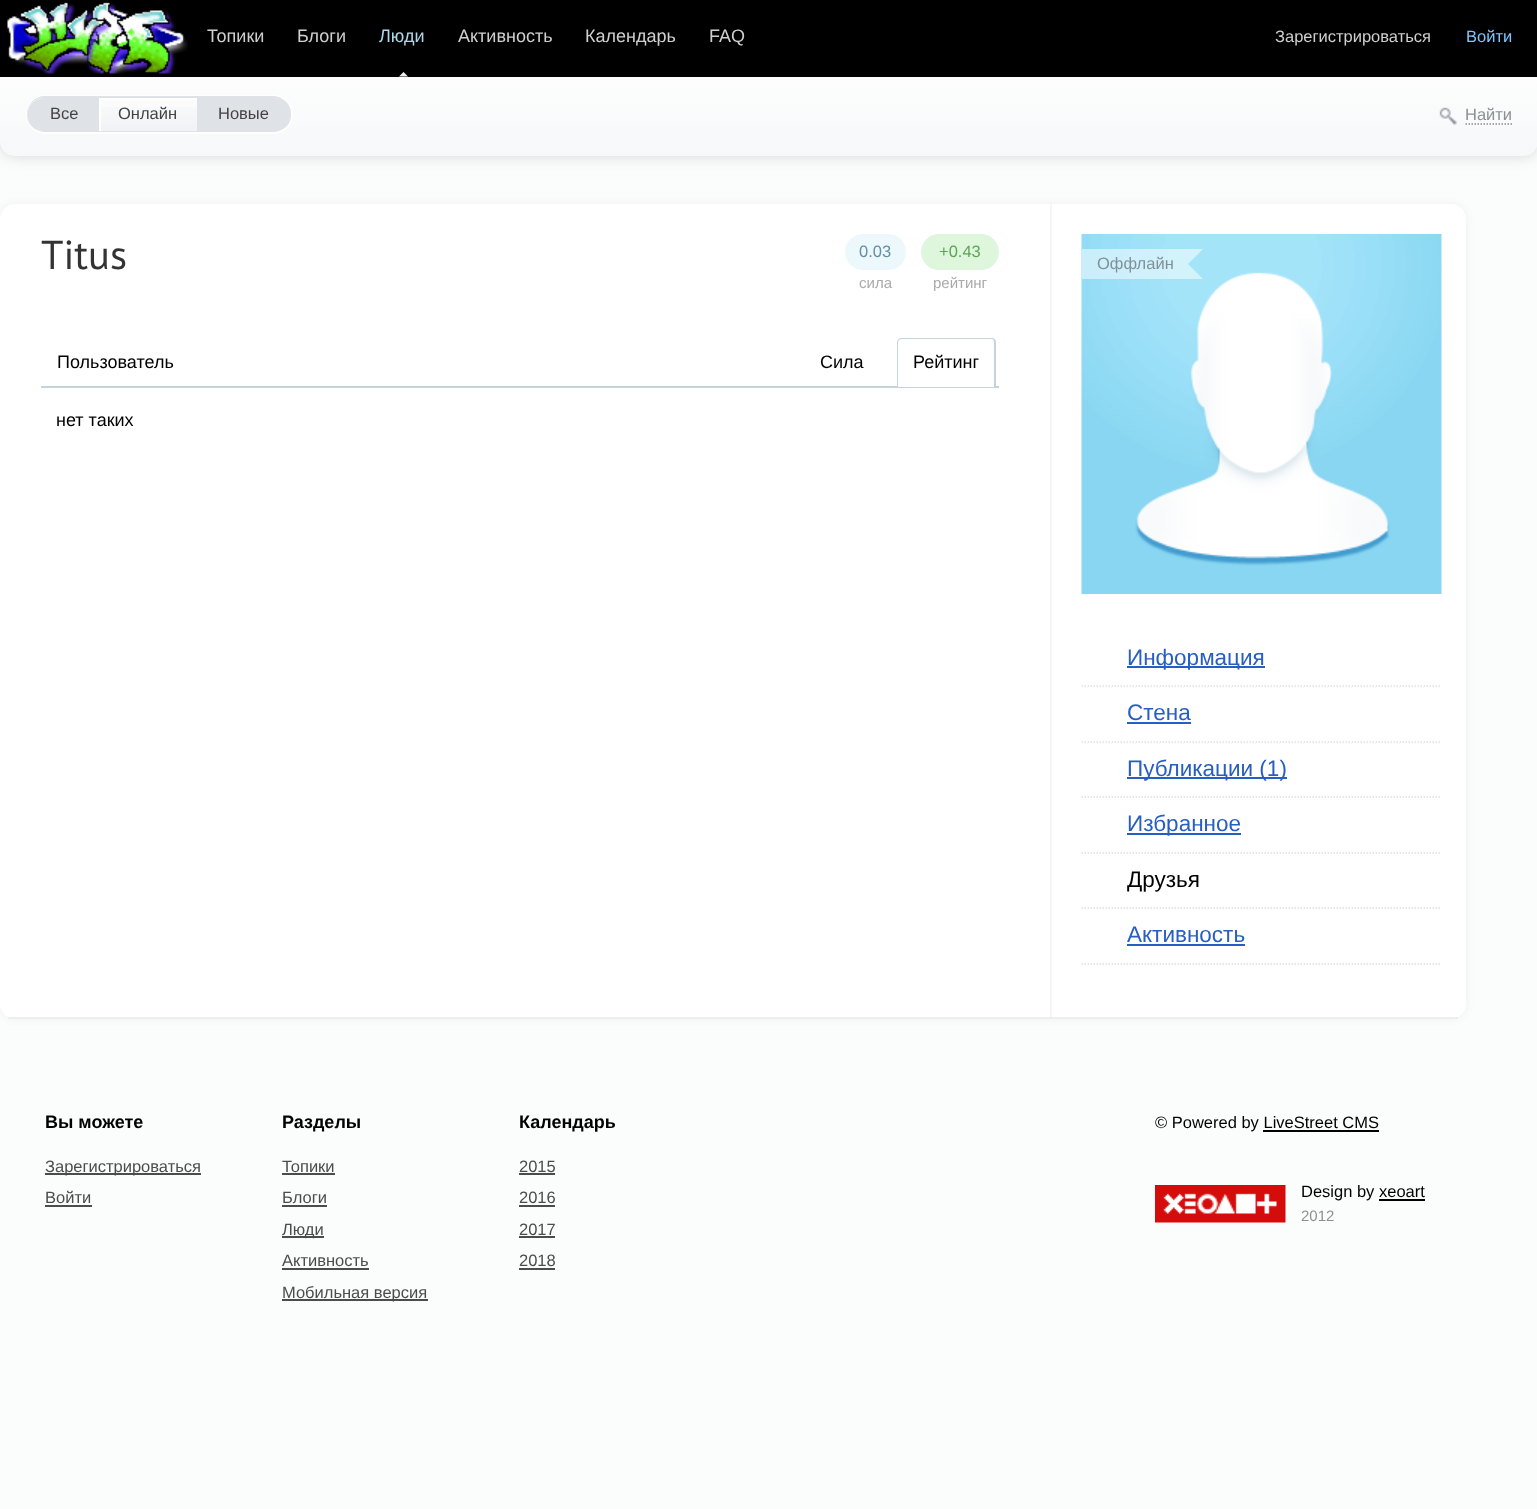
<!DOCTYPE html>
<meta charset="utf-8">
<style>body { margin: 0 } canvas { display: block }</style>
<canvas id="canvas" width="1537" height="1509"></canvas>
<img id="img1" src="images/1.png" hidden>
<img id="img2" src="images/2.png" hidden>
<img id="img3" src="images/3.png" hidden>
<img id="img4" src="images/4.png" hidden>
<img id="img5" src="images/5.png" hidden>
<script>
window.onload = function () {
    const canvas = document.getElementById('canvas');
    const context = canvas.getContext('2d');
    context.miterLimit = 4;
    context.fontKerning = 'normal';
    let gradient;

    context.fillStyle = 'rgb(251, 252, 252)';
    context.fillRect(0, 0, 1537, 1509);
    context.fillStyle = 'rgb(0, 0, 0)';
    context.fillRect(0, 0, 1537, 77);
    context.drawImage(document.getElementById('img1'), 7, 2, 181, 72);
    context.fillStyle = 'rgb(255, 255, 255)';
    context.beginPath();
    context.moveTo(408, 76.5);
    context.lineTo(399, 76.5);
    context.lineTo(403.5, 72);
    context.closePath();
    context.fill();
    context.fillStyle = 'rgba(0, 0, 0, 0.15)';
    context.filter = 'blur(7.5px)';
    context.beginPath();
    context.roundRect(0, 77, 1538, 79, 15);
    context.fill();
    context.filter = 'none';
    gradient = context.createLinearGradient(769, 76, 769, 156);
    gradient.addColorStop(0, 'rgb(253, 253, 253)');
    gradient.addColorStop(1, 'rgb(246, 248, 249)');
    context.fillStyle = gradient;
    context.beginPath();
    context.moveTo(0, 77);
    context.lineTo(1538, 77);
    context.lineTo(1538, 141);
    context.bezierCurveTo(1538, 149.5, 1531.5, 156, 1523, 156);
    context.lineTo(15, 156);
    context.bezierCurveTo(6.5, 156, 0, 149.5, 0, 141);
    context.closePath();
    context.fill();
    context.beginPath();
    context.roundRect(27, 96, 265, 37, 18.5);
    context.strokeStyle = 'rgb(255, 255, 255)';
    context.lineWidth = 2;
    context.stroke();
    context.fillStyle = 'rgb(223, 227, 232)';
    context.beginPath();
    context.moveTo(27, 112);
    context.lineTo(27, 114);
    context.bezierCurveTo(27, 124, 35, 132, 45, 132);
    context.lineTo(99, 132);
    context.lineTo(99, 130);
    context.lineTo(41, 130);
    context.bezierCurveTo(31, 128, 27, 120, 27, 112);
    context.closePath();
    context.fill();
    context.beginPath();
    context.moveTo(45, 98);
    context.lineTo(99, 98);
    context.lineTo(99, 96);
    context.lineTo(45, 96);
    context.bezierCurveTo(35, 96, 27, 104, 27, 114);
    context.lineTo(27, 116);
    context.bezierCurveTo(27, 107, 34, 98, 45, 98);
    context.closePath();
    context.fill();
    context.fillRect(98, 96, 1, 36);
    context.save();
    context.beginPath();
    context.roundRect(27, 96, 264, 36, 18);
    context.clip();
    gradient = context.createLinearGradient(62, 98, 62, 131);
    gradient.addColorStop(0, 'rgb(251, 251, 252)');
    gradient.addColorStop(1, 'rgb(240, 242, 245)');
    context.fillStyle = gradient;
    context.beginPath();
    context.roundRect(27, 98, 71, 33, [16.5, 0, 0, 16.5]);
    context.fill();
    context.restore();
    context.fillStyle = 'rgb(255, 255, 255)';
    context.beginPath();
    context.moveTo(44, 99);
    context.lineTo(98, 99);
    context.lineTo(98, 98);
    context.lineTo(44, 98);
    context.bezierCurveTo(34, 98, 27, 105, 27, 114);
    context.lineTo(27, 115);
    context.bezierCurveTo(27, 106, 34, 99, 44, 99);
    context.closePath();
    context.fill();
    context.fillStyle = 'rgb(223, 227, 232)';
    context.beginPath();
    context.moveTo(44, 98);
    context.lineTo(98, 98);
    context.lineTo(98, 131);
    context.lineTo(62, 131);
    context.bezierCurveTo(55, 131, 45, 132, 38, 130);
    context.bezierCurveTo(21, 124, 25, 98, 44, 98);
    context.closePath();
    context.fill();
    context.fillRect(99, 131, 99, 1);
    context.fillRect(99, 96, 99, 2);
    context.fillRect(197, 96, 1, 36);
    gradient = context.createLinearGradient(148, 98, 148, 131);
    gradient.addColorStop(0, 'rgb(251, 251, 252)');
    gradient.addColorStop(1, 'rgb(240, 242, 245)');
    context.fillStyle = gradient;
    context.fillRect(101, 107, 96, 24);
    context.fillStyle = 'rgb(255, 255, 255)';
    context.fillRect(99, 98, 98, 2);
    context.fillRect(99, 98, 2, 33);
    context.fillStyle = 'rgb(223, 227, 232)';
    context.beginPath();
    context.moveTo(198, 132);
    context.lineTo(273, 132);
    context.bezierCurveTo(283, 132, 291, 124, 291, 114);
    context.lineTo(291, 113);
    context.bezierCurveTo(290, 123, 283, 130, 273, 130);
    context.lineTo(198, 130);
    context.closePath();
    context.fill();
    context.beginPath();
    context.moveTo(198, 96);
    context.lineTo(198, 98);
    context.lineTo(273, 98);
    context.bezierCurveTo(283, 98, 290, 105, 291, 115);
    context.bezierCurveTo(292, 105, 283, 96, 273, 96);
    context.closePath();
    context.fill();
    context.beginPath();
    context.moveTo(198, 98);
    context.lineTo(274, 98);
    context.bezierCurveTo(284, 98, 291, 105, 291, 114);
    context.bezierCurveTo(291, 118, 290, 122, 288, 125);
    context.bezierCurveTo(285, 128, 280, 131, 274, 131);
    context.lineTo(198, 131);
    context.closePath();
    context.fill();
    context.drawImage(document.getElementById('img2'), 1439, 107, 18, 18);
    context.beginPath();
    context.moveTo(1465.5, 124);
    context.lineTo(1512, 124);
    context.strokeStyle = 'rgb(135, 142, 150)';
    context.lineWidth = 1.5;
    context.setLineDash([1.5, 1.5]);
    context.stroke();
    context.fillStyle = 'rgba(0, 0, 0, 0.05)';
    context.filter = 'blur(4px)';
    context.beginPath();
    context.roundRect(0, 204, 1466, 815, 15);
    context.fill();
    context.filter = 'none';
    context.fillStyle = 'rgb(255, 255, 255)';
    context.beginPath();
    context.roundRect(0, 204, 1466, 815, 15);
    context.fill();
    context.drawImage(document.getElementById('img3'), 1050, 204, 2, 813);
    context.fillStyle = 'rgb(238, 238, 238)';
    context.fillRect(8, 1017, 1450, 2);
    context.fillStyle = 'rgb(237, 248, 253)';
    context.beginPath();
    context.roundRect(845, 234, 61, 36, 18);
    context.fill();
    context.fillStyle = 'rgb(222, 247, 220)';
    context.beginPath();
    context.roundRect(921, 234, 78, 36, 18);
    context.fill();
    context.fillStyle = 'rgb(195, 212, 220)';
    context.fillRect(41, 386, 958, 2);
    context.fillStyle = 'rgb(255, 255, 255)';
    context.beginPath();
    context.roundRect(897, 338, 99, 49, [5, 5, 0, 0]);
    context.fill();
    context.fillStyle = 'rgb(195, 212, 220)';
    context.beginPath();
    context.moveTo(902, 338);
    context.lineTo(992, 338);
    context.bezierCurveTo(994, 338, 996, 340, 996, 342);
    context.lineTo(996, 387);
    context.lineTo(897, 387);
    context.lineTo(897, 342);
    context.bezierCurveTo(897, 340, 899, 338, 902, 338);
    context.closePath();
    context.moveTo(902, 339);
    context.lineTo(992, 339);
    context.bezierCurveTo(993, 339, 994, 340, 994, 342);
    context.lineTo(994, 387);
    context.lineTo(898, 387);
    context.lineTo(898, 342);
    context.bezierCurveTo(898, 340, 900, 339, 902, 339);
    context.closePath();
    context.fill('evenodd');
    context.drawImage(document.getElementById('img4'), 1081, 234, 361, 360);
    context.fillStyle = 'rgba(255, 255, 255, 0.5)';
    context.fillRect(1082, 249, 91, 30);
    context.fillStyle = 'rgb(210, 242, 252)';
    context.beginPath();
    context.moveTo(1173, 249);
    context.lineTo(1203, 249);
    context.lineTo(1188, 264);
    context.closePath();
    context.moveTo(1203, 279);
    context.lineTo(1173, 279);
    context.lineTo(1188, 264);
    context.closePath();
    context.fill();
    context.fillRect(1173, 249, 15, 30);
    context.beginPath();
    context.moveTo(1081.5, 686);
    context.lineTo(1441.5, 686);
    context.strokeStyle = 'rgb(220, 225, 230)';
    context.stroke();
    context.fillStyle = 'rgb(39, 94, 194)';
    context.fillRect(1127, 666, 138, 2);
    context.beginPath();
    context.moveTo(1081.5, 742);
    context.lineTo(1441.5, 742);
    context.stroke();
    context.fillRect(1127, 722, 64, 2);
    context.beginPath();
    context.moveTo(1081.5, 797);
    context.lineTo(1441.5, 797);
    context.stroke();
    context.fillRect(1127, 777, 160, 2);
    context.beginPath();
    context.moveTo(1081.5, 853);
    context.lineTo(1441.5, 853);
    context.stroke();
    context.fillRect(1127, 833, 114, 2);
    context.beginPath();
    context.moveTo(1081.5, 908);
    context.lineTo(1441.5, 908);
    context.stroke();
    context.beginPath();
    context.moveTo(1081.5, 964);
    context.lineTo(1441.5, 964);
    context.stroke();
    context.fillRect(1127, 944, 118, 2);
    context.fillStyle = 'rgb(76, 76, 76)';
    context.fillRect(45, 1173, 156, 2);
    context.fillRect(45, 1205, 47, 2);
    context.fillRect(282, 1173, 53, 2);
    context.fillRect(282, 1205, 45, 2);
    context.fillRect(282, 1236, 42, 2);
    context.fillRect(282, 1268, 87, 2);
    context.fillRect(282, 1299, 146, 2);
    context.fillRect(519, 1173, 36, 2);
    context.fillRect(519, 1205, 36, 2);
    context.fillRect(519, 1236, 36, 2);
    context.fillRect(519, 1268, 36, 2);
    context.fillStyle = 'rgb(0, 0, 0)';
    context.fillRect(1263, 1130, 116, 2);
    context.drawImage(document.getElementById('img5'), 1155, 1185, 131, 38);
    context.fillRect(1379, 1199, 46, 2);
    context.font = '18px Liberation Sans';
    context.fillStyle = 'rgb(207, 207, 207)';
    context.fillText('Топики', 207, 42);
    context.fillText('Блоги', 297, 42);
    context.fillStyle = 'rgb(174, 214, 233)';
    context.fillText('Люди', 379, 42);
    context.fillStyle = 'rgb(207, 207, 207)';
    context.fillText('Активность', 458, 42);
    context.fillText('Календарь', 585, 42);
    context.fillText('FAQ', 709, 42);
    context.font = '16.5px Liberation Sans';
    context.fillText('Зарегистрироваться', 1275, 42);
    context.fillStyle = 'rgb(125, 198, 255)';
    context.fillText('Войти', 1466, 42);
    context.fillStyle = 'rgb(67, 67, 67)';
    context.fillText('Все', 50, 119);
    context.fillText('Онлайн', 118, 119);
    context.fillText('Новые', 218, 119);
    context.fillStyle = 'rgb(139, 145, 145)';
    context.fillText('Найти', 1465, 120);
    context.font = '40.5px PT Sans';
    context.fillStyle = 'rgb(51, 51, 51)';
    context.fillText('Titus', 41, 269);
    context.font = '16.5px Liberation Sans';
    context.fillStyle = 'rgb(98, 143, 165)';
    context.fillText('0.03', 859, 257);
    context.font = '15px Liberation Sans';
    context.fillStyle = 'rgb(170, 170, 170)';
    context.fillText('сила', 859, 288);
    context.font = '16.5px Liberation Sans';
    context.fillStyle = 'rgb(95, 164, 89)';
    context.fillText('+0.43', 939, 257);
    context.font = '15px Liberation Sans';
    context.fillStyle = 'rgb(170, 170, 170)';
    context.fillText('рейтинг', 933, 288);
    context.font = '18px Liberation Sans';
    context.fillStyle = 'rgb(0, 0, 0)';
    context.fillText('Пользователь', 57, 368);
    context.fillText('Сила', 820, 368);
    context.fillText('Рейтинг', 913, 368);
    context.fillText('нет таких', 56, 426);
    context.font = '16.5px Liberation Sans';
    context.fillStyle = 'rgb(129, 145, 151)';
    context.fillText('Оффлайн', 1097, 269);
    context.font = '22.5px Liberation Sans';
    context.fillStyle = 'rgb(39, 94, 194)';
    context.fillText('Информация', 1127, 665);
    context.fillText('Стена', 1127, 720);
    context.fillText('Публикации (1)', 1127, 776);
    context.fillText('Избранное', 1127, 831);
    context.fillStyle = 'rgb(0, 0, 0)';
    context.fillText('Друзья', 1127, 887);
    context.fillStyle = 'rgb(39, 94, 194)';
    context.fillText('Активность', 1127, 942);
    context.font = 'bold 18px Liberation Sans';
    context.fillStyle = 'rgb(0, 0, 0)';
    context.fillText('Вы можете', 45, 1128);
    context.font = '16.5px Liberation Sans';
    context.fillStyle = 'rgb(76, 76, 76)';
    context.fillText('Зарегистрироваться', 45, 1172);
    context.fillText('Войти', 45, 1203);
    context.font = 'bold 18px Liberation Sans';
    context.fillStyle = 'rgb(0, 0, 0)';
    context.fillText('Разделы', 282, 1128);
    context.font = '16.5px Liberation Sans';
    context.fillStyle = 'rgb(76, 76, 76)';
    context.fillText('Топики', 282, 1172);
    context.fillText('Блоги', 282, 1203);
    context.fillText('Люди', 282, 1235);
    context.fillText('Активность', 282, 1266);
    context.fillText('Мобильная версия', 282, 1298);
    context.font = 'bold 18px Liberation Sans';
    context.fillStyle = 'rgb(0, 0, 0)';
    context.fillText('Календарь', 519, 1128);
    context.font = '16.5px Liberation Sans';
    context.fillStyle = 'rgb(76, 76, 76)';
    context.fillText('2015', 519, 1172);
    context.fillText('2016', 519, 1203);
    context.fillText('2017', 519, 1235);
    context.fillText('2018', 519, 1266);
    context.fillStyle = 'rgb(0, 0, 0)';
    context.fillText('© Powered by LiveStreet CMS', 1155, 1128);
    context.fillText('Design by xeoart', 1301, 1197);
    context.font = '15px Liberation Sans';
    context.fillStyle = 'rgb(139, 145, 145)';
    context.fillText('2012', 1301, 1221);
};
</script>
